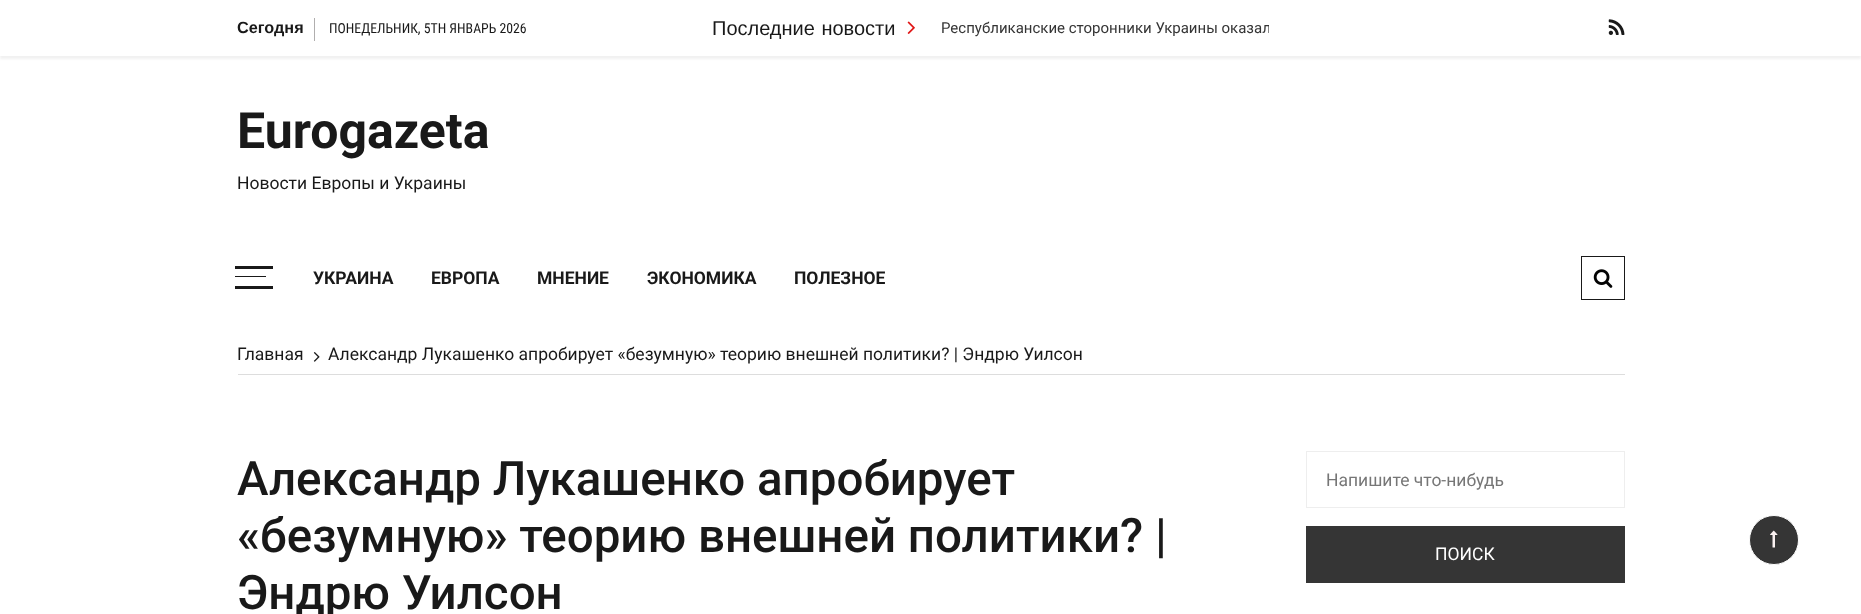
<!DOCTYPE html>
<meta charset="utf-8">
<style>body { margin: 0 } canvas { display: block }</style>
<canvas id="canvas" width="1861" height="614"></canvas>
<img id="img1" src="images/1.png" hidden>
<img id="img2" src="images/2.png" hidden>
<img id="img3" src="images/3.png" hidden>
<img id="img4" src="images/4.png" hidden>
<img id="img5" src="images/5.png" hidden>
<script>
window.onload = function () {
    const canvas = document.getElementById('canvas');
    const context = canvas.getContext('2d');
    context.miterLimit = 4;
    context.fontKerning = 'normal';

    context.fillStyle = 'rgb(255, 255, 255)';
    context.fillRect(0, 0, 1861, 614);
    context.save();
    context.beginPath();
    context.rect(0, 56, 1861, 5);
    context.clip();
    context.fillStyle = 'rgb(241, 241, 241)';
    context.filter = 'blur(1px)';
    context.beginPath();
    context.rect(0, 3, 1861, 56);
    context.fill();
    context.filter = 'none';
    context.restore();
    context.fillStyle = 'rgb(176, 174, 174)';
    context.fillRect(314, 18, 1, 23);
    context.drawImage(document.getElementById('img1'), 907, 21, 8, 13);
    context.drawImage(document.getElementById('img2'), 1608, 19, 17, 16);
    context.fillStyle = 'rgb(25, 25, 25)';
    context.fillRect(235, 286, 38, 3);
    context.fillRect(235, 266, 38, 3);
    context.fillRect(235, 276, 31, 1);
    context.strokeStyle = 'rgb(25, 25, 25)';
    context.strokeRect(1581.5, 256.5, 43, 43);
    context.drawImage(document.getElementById('img3'), 1593, 269, 20, 19);
    context.fillStyle = 'rgb(221, 221, 221)';
    context.fillRect(238, 374, 1387, 1);
    context.drawImage(document.getElementById('img4'), 313, 352, 7, 10);
    context.strokeStyle = 'rgb(238, 238, 238)';
    context.strokeRect(1306.5, 451.5, 318, 56);
    context.fillStyle = 'rgb(53, 53, 53)';
    context.fillRect(1306, 526, 319, 57);
    context.beginPath();
    context.arc(1774, 540, 24.5, 0, 2 * Math.PI);
    context.fill();
    context.strokeStyle = 'rgb(255, 255, 255)';
    context.stroke();
    context.drawImage(document.getElementById('img5'), 1770, 530, 8, 18);
    context.font = 'bold 16.25px Liberation Sans';
    context.fillStyle = 'rgb(25, 25, 25)';
    context.fillText('Сегодня', 237, 33);
    context.font = '13.75px Roboto Condensed';
    context.fillText('ПОНЕДЕЛЬНИК, 5TH ЯНВАРЬ 2026', 329, 33);
    context.wordSpacing = '1px';
    context.font = '20px Liberation Sans';
    context.fillText('Последние новости', 712, 35);
    context.save();
    context.beginPath();
    context.rect(929, 18, 340, 28);
    context.clip();
    context.wordSpacing = '0px';
    context.font = '15px Roboto';
    context.fillStyle = 'rgb(53, 53, 53)';
    context.fillText('Республиканские сторонники Украины оказал', 941, 33);
    context.restore();
    context.wordSpacing = '0px';
    context.font = 'bold 50px Roboto';
    context.fillText('Eurogazeta', 237, 148);
    context.font = '17.5px Roboto';
    context.fillText('Новости Европы и Украины', 237, 189);
    context.font = 'bold 17.5px Roboto';
    context.fillText('УКРАИНА', 313, 284);
    context.fillText('ЕВРОПА', 431, 284);
    context.fillText('МНЕНИЕ', 537, 284);
    context.fillText('ЭКОНОМИКА', 647, 284);
    context.fillText('ПОЛЕЗНОЕ', 794, 284);
    context.font = '17.5px Roboto';
    context.fillText('Главная', 237, 360);
    context.fillText('Александр Лукашенко апробирует «безумную» теорию внешней политики? | Эндрю Уилсон', 328, 360);
    context.font = '500 47.5px Roboto';
    context.fillText('Александр Лукашенко апробирует', 237, 495);
    context.fillText('«безумную» теорию внешней политики? |', 237, 552);
    context.fillText('Эндрю Уилсон', 237, 609);
    context.font = '17.5px Roboto';
    context.fillStyle = 'rgb(118, 118, 118)';
    context.fillText('Напишите что-нибудь', 1326, 486);
    context.fillStyle = 'rgb(255, 255, 255)';
    context.fillText('ПОИСК', 1435, 560);
};
</script>
